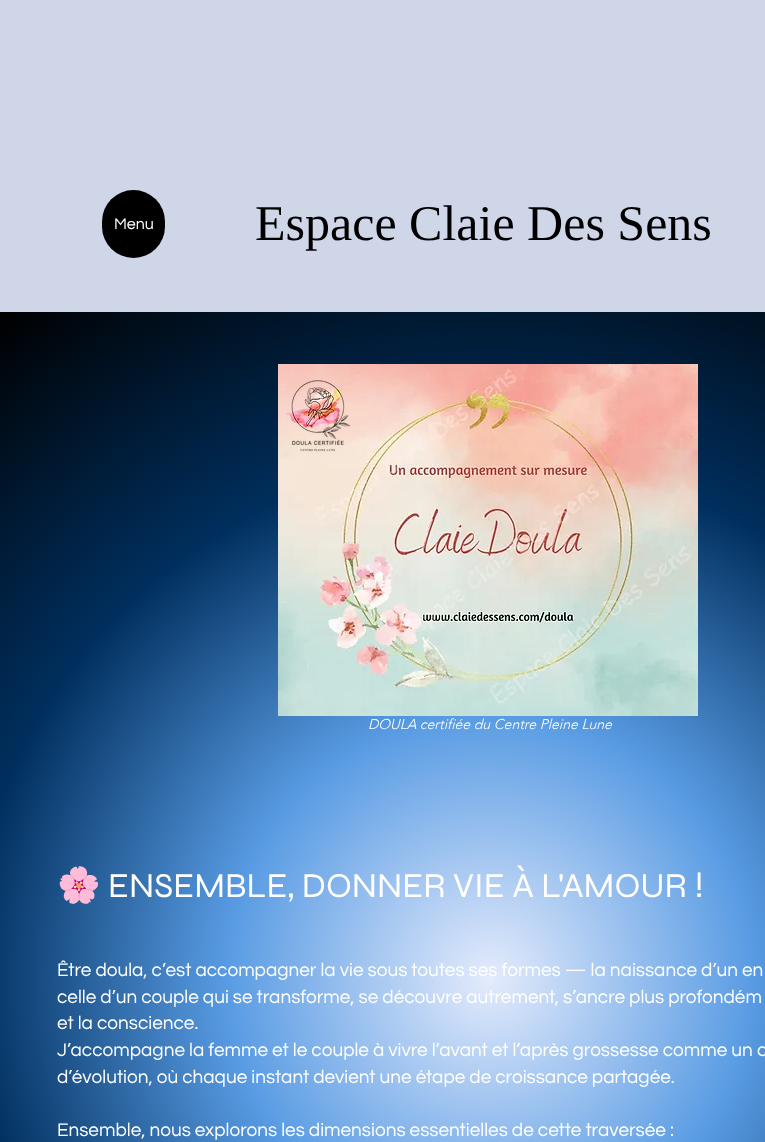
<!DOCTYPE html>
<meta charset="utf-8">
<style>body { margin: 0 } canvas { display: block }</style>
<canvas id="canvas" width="765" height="1142"></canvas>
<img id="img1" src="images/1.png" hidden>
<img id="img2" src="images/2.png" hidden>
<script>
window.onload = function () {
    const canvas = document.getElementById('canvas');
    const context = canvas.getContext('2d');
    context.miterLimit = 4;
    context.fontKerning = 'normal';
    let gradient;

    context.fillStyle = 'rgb(207, 214, 232)';
    context.fillRect(0, 0, 765, 1142);
    context.fillStyle = 'rgb(0, 0, 0)';
    context.beginPath();
    context.roundRect(102, 190, 63, 68, 31.5);
    context.fill();
    gradient = context.createRadialGradient(490, 978, 0, 490, 978, 826);
    gradient.addColorStop(0, 'rgb(228, 235, 252)');
    gradient.addColorStop(0.32, 'rgb(88, 155, 227)');
    gradient.addColorStop(0.63, 'rgb(0, 47, 94)');
    gradient.addColorStop(1, 'rgb(0, 0, 0)');
    context.fillStyle = gradient;
    context.fillRect(0, 312, 765, 830);
    context.drawImage(document.getElementById('img1'), 278, 364, 420, 352);
    context.drawImage(document.getElementById('img2'), 286, 380, 65, 72);
    context.font = '16px Questrial';
    context.fillStyle = 'rgb(255, 255, 255)';
    context.fillText('Menu', 114, 229);
    context.font = '50px Liberation Serif';
    context.fillStyle = 'rgb(0, 0, 0)';
    context.fillText('Espace Claie Des Sens', 255, 240);
    context.font = 'italic 300 14px "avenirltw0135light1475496"';
    context.fillStyle = 'rgb(255, 255, 255)';
    context.fillText('DOULA certifiée du Centre Pleine Lune', 368, 729);
    context.font = '35px Noto Color Emoji';
    context.fillText('🌸', 57, 897);
    context.font = '35px Syne';
    context.fillText('ENSEMBLE, DONNER VIE À L\'AMOUR !', 108, 897);
    context.font = '19px Questrial';
    context.fillText('Être doula, c’est accompagner la vie sous toutes ses formes — la naissance d’un en', 57, 976);
    context.fillText('celle d’un couple qui se transforme, se découvre autrement, s’ancre plus profondém', 57, 1003);
    context.fillText('et la conscience.', 57, 1029);
    context.fillText('J’accompagne la femme et le couple à vivre l’avant et l’après grossesse comme un c', 57, 1056);
    context.fillText('d’évolution, où chaque instant devient une étape de croissance partagée.', 57, 1083);
    context.fillText('Ensemble, nous explorons les dimensions essentielles de cette traversée :', 57, 1136);
};
</script>
